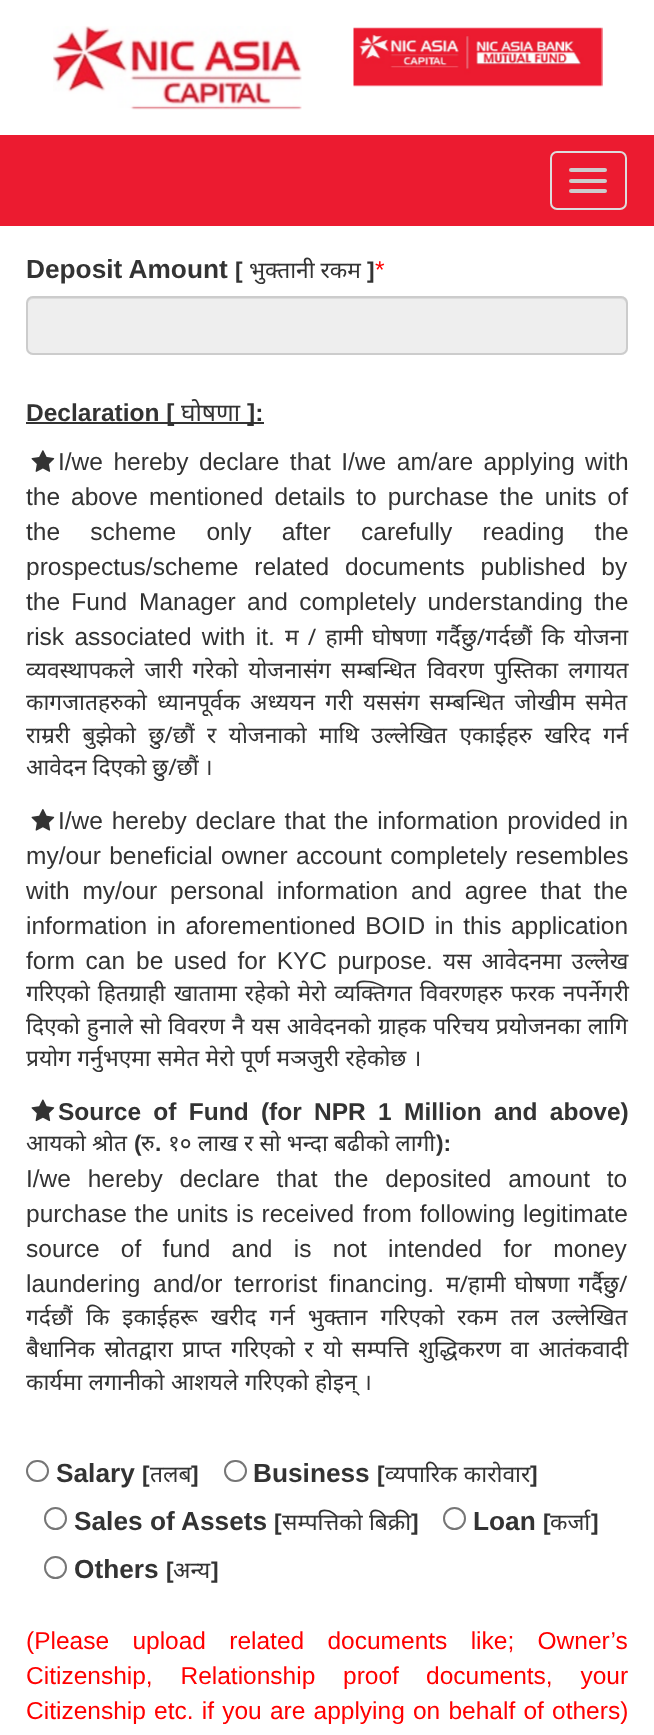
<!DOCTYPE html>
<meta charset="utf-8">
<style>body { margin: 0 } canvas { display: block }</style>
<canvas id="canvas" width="654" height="1735"></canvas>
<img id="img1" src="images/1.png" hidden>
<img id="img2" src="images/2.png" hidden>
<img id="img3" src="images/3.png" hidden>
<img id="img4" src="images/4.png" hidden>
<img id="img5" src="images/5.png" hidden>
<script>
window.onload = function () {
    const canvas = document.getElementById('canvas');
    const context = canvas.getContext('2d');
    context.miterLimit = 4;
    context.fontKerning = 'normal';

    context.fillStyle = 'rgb(255, 255, 255)';
    context.fillRect(0, 0, 654, 1735);
    context.drawImage(document.getElementById('img1'), 53, 26, 249, 84);
    context.drawImage(document.getElementById('img2'), 353, 27, 250, 60);
    context.fillStyle = 'rgb(236, 27, 48)';
    context.fillRect(0, 135, 654, 91);
    context.beginPath();
    context.roundRect(551, 152, 75, 57, 6);
    context.strokeStyle = 'rgb(221, 221, 221)';
    context.lineWidth = 2;
    context.stroke();
    context.fillStyle = 'rgb(204, 204, 204)';
    context.beginPath();
    context.roundRect(569, 168, 38, 4, 2);
    context.fill();
    context.beginPath();
    context.roundRect(569, 179, 38, 4, 2);
    context.fill();
    context.beginPath();
    context.roundRect(569, 189, 38, 4, 2);
    context.fill();
    context.fillStyle = 'rgb(238, 238, 238)';
    context.beginPath();
    context.roundRect(26, 296, 602, 59, 7);
    context.fill();
    context.fillStyle = 'rgb(220, 220, 220)';
    context.beginPath();
    context.moveTo(33, 299);
    context.lineTo(621, 299);
    context.bezierCurveTo(624, 299, 626, 302, 626, 304);
    context.lineTo(626, 350);
    context.lineTo(625, 353);
    context.bezierCurveTo(626, 352, 627, 350, 627, 349);
    context.lineTo(627, 303);
    context.bezierCurveTo(627, 300, 625, 298, 622, 298);
    context.lineTo(33, 298);
    context.bezierCurveTo(30, 298, 28, 300, 28, 303);
    context.lineTo(28, 304);
    context.bezierCurveTo(28, 302, 30, 299, 33, 299);
    context.closePath();
    context.fill();
    context.beginPath();
    context.roundRect(27, 297, 600, 57, 6);
    context.strokeStyle = 'rgb(204, 204, 204)';
    context.stroke();
    context.fillStyle = 'rgb(51, 51, 51)';
    context.fillRect(26, 422, 238, 2);
    context.drawImage(document.getElementById('img3'), 31, 450, 24, 22);
    context.drawImage(document.getElementById('img4'), 31, 809, 24, 22);
    context.drawImage(document.getElementById('img5'), 31, 1099, 24, 23);
    context.beginPath();
    context.roundRect(27, 1461, 21, 20, 10);
    context.strokeStyle = 'rgb(118, 118, 118)';
    context.stroke();
    context.beginPath();
    context.roundRect(225, 1461, 21, 20, 10);
    context.stroke();
    context.beginPath();
    context.arc(55.5, 1518.5, 10.5, 0, 2 * Math.PI);
    context.stroke();
    context.beginPath();
    context.arc(454.5, 1518.5, 10.5, 0, 2 * Math.PI);
    context.stroke();
    context.beginPath();
    context.arc(55.5, 1567.5, 10.5, 0, 2 * Math.PI);
    context.stroke();
    context.font = 'bold 26.25px Liberation Sans';
    context.fillText('Deposit Amount', 26, 278);
    context.font = 'bold 22.75px Liberation Sans';
    context.fillText('[', 235, 278);
    context.font = '22.75px Noto Sans';
    context.fillText('भुक्तानी रकम', 249, 278);
    context.font = 'bold 22.75px Liberation Sans';
    context.fillText(']', 367, 278);
    context.font = '24.5px Liberation Sans';
    context.fillStyle = 'rgb(255, 0, 0)';
    context.fillText('*', 375, 278);
    context.font = 'bold 24.5px Liberation Sans';
    context.fillStyle = 'rgb(51, 51, 51)';
    context.fillText('Declaration [', 26, 421);
    context.font = '24.5px Noto Sans';
    context.fillText('घोषणा', 181, 421);
    context.font = 'bold 24.5px Liberation Sans';
    context.fillText(']:', 247, 421);
    context.wordSpacing = '3.75px';
    context.font = '24.5px Liberation Sans';
    context.fillText('I/we hereby declare that I/we am/are applying', 58, 470);
    context.wordSpacing = '0px';
    context.fillText('with', 585, 470);
    context.wordSpacing = '4.25px';
    context.fillText('the above mentioned details to purchase the units of', 26, 505);
    context.wordSpacing = '23.5px';
    context.fillText('the scheme only after', 26, 540);
    context.fillText('carefully reading the', 361, 540);
    context.wordSpacing = '9px';
    context.fillText('prospectus/scheme related documents published by', 26, 575);
    context.wordSpacing = '4.5px';
    context.fillText('the Fund', 26, 610);
    context.fillText('Manager and completely understanding the', 139, 610);
    context.wordSpacing = '3.5px';
    context.fillText('risk associated with it.', 26, 645);
    context.wordSpacing = '3.25px';
    context.font = '22.75px Noto Sans';
    context.fillText('म / हामी घोषणा गर्दैछु/गर्दछौं कि योजना', 285, 645);
    context.wordSpacing = '4.25px';
    context.fillText('व्यवस्थापकले जारी गरेको योजनासंग सम्बन्धित', 26, 678);
    context.fillText('विवरण पुस्तिका लगायत', 427, 678);
    context.wordSpacing = '4px';
    context.fillText('कागजातहरुको ध्यानपूर्वक अध्ययन गरी यससंग सम्बन्धित जोखीम समेत', 26, 710);
    context.wordSpacing = '6.5px';
    context.fillText('राम्ररी बुझेको छु/छौं र योजनाको माथि उल्लेखित एकाईहरु खरिद गर्न', 26, 743);
    context.wordSpacing = '0px';
    context.fillText('आवेदन दिएको छु/छौं', 26, 775);
    context.fillText('।', 204, 775);
    context.wordSpacing = '2px';
    context.font = '24.5px Liberation Sans';
    context.fillText('I/we hereby declare that the information provided', 58, 829);
    context.wordSpacing = '0px';
    context.fillText('in', 609, 829);
    context.wordSpacing = '1.5px';
    context.fillText('my/our beneficial owner account completely resembles', 26, 864);
    context.wordSpacing = '6px';
    context.fillText('with my/our personal information', 26, 899);
    context.fillText('and agree that the', 411, 899);
    context.wordSpacing = '2.75px';
    context.fillText('information in aforementioned BOID in this application', 26, 934);
    context.wordSpacing = '3.75px';
    context.fillText('form can', 26, 969);
    context.fillText('be used for KYC purpose.', 136, 969);
    context.wordSpacing = '4px';
    context.font = '22.75px Noto Sans';
    context.fillText('यस आवेदनमा उल्लेख', 443, 969);
    context.wordSpacing = '2px';
    context.fillText('गरिएको हितग्राही', 26, 1001);
    context.fillText('खातामा रहेको मेरो व्यक्तिगत विवरणहरु फरक नपर्नेगरी', 174, 1001);
    context.wordSpacing = '1px';
    context.fillText('दिएको हुनाले सो विवरण नै यस आवेदनको', 26, 1034);
    context.fillText('ग्राहक परिचय प्रयोजनका लागि', 378, 1034);
    context.wordSpacing = '0.5px';
    context.fillText('प्रयोग गर्नुभएमा समेत मेरो पूर्ण मञजुरी रहेकोछ ।', 26, 1066);
    context.wordSpacing = '5.5px';
    context.font = 'bold 24.5px Liberation Sans';
    context.fillText('Source of Fund (for NPR 1 Million and above)', 58, 1120);
    context.wordSpacing = '0.25px';
    context.font = '22.75px Noto Sans';
    context.fillText('आयको श्रोत', 26, 1151);
    context.wordSpacing = '0px';
    context.font = 'bold 22.75px Liberation Sans';
    context.fillText('(', 134, 1151);
    context.font = '22.75px Noto Sans';
    context.fillText('रु', 141, 1151);
    context.font = 'bold 22.75px Liberation Sans';
    context.fillText('.', 155, 1151);
    context.wordSpacing = '0.25px';
    context.font = '22.75px Noto Sans';
    context.fillText('१० लाख र सो भन्दा बढीको लागी', 168, 1151);
    context.wordSpacing = '0px';
    context.font = 'bold 22.75px Liberation Sans';
    context.fillText('):', 436, 1151);
    context.wordSpacing = '10px';
    context.font = '24.5px Liberation Sans';
    context.fillText('I/we hereby declare that the deposited amount to', 26, 1187);
    context.wordSpacing = '1px';
    context.fillText('purchase the units is received', 26, 1222);
    context.fillText('from following legitimate', 363, 1222);
    context.wordSpacing = '14.5px';
    context.fillText('source of fund and is not intended for money', 26, 1257);
    context.wordSpacing = '0px';
    context.fillText('laundering', 26, 1292);
    context.wordSpacing = '5px';
    context.fillText('and/or terrorist financing.', 153, 1292);
    context.wordSpacing = '3px';
    context.font = '22.75px Noto Sans';
    context.fillText('म/हामी घोषणा गर्दैछु/', 446, 1292);
    context.wordSpacing = '0px';
    context.fillText('गर्दछौं', 26, 1325);
    context.wordSpacing = '7px';
    context.fillText('कि इकाईहरू खरीद गर्न भुक्तान गरिएको रकम तल उल्लेखित', 86, 1325);
    context.wordSpacing = '3.5px';
    context.fillText('बैधानिक स्रोतद्वारा प्राप्त', 26, 1357);
    context.fillText('गरिएको र यो सम्पत्ति शुद्धिकरण वा आतंकवादी', 231, 1357);
    context.wordSpacing = '0.5px';
    context.fillText('कार्यमा लगानीको आशयले गरिएको होइन् ।', 26, 1390);
    context.wordSpacing = '0px';
    context.font = 'bold 26.25px Liberation Sans';
    context.fillText('Salary', 56, 1482);
    context.font = 'bold 22.75px Liberation Sans';
    context.fillText('[', 142, 1482);
    context.font = '22.75px Noto Sans';
    context.fillText('तलब', 150, 1482);
    context.font = 'bold 22.75px Liberation Sans';
    context.fillText(']', 191, 1482);
    context.font = 'bold 26.25px Liberation Sans';
    context.fillText('Business', 253, 1482);
    context.font = 'bold 22.75px Liberation Sans';
    context.fillText('[', 377, 1482);
    context.wordSpacing = '0.5px';
    context.font = '22.75px Noto Sans';
    context.fillText('व्यपारिक कारोवार', 385, 1482);
    context.wordSpacing = '0px';
    context.font = 'bold 22.75px Liberation Sans';
    context.fillText(']', 530, 1482);
    context.font = 'bold 26.25px Liberation Sans';
    context.fillText('Sales of Assets', 74, 1530);
    context.font = 'bold 22.75px Liberation Sans';
    context.fillText('[', 274, 1530);
    context.wordSpacing = '0.5px';
    context.font = '22.75px Noto Sans';
    context.fillText('सम्पत्तिको बिक्री', 282, 1530);
    context.wordSpacing = '0px';
    context.font = 'bold 22.75px Liberation Sans';
    context.fillText(']', 411, 1530);
    context.font = 'bold 26.25px Liberation Sans';
    context.fillText('Loan', 473, 1530);
    context.font = 'bold 22.75px Liberation Sans';
    context.fillText('[', 543, 1530);
    context.font = '22.75px Noto Sans';
    context.fillText('कर्जा', 550, 1530);
    context.font = 'bold 22.75px Liberation Sans';
    context.fillText(']', 591, 1530);
    context.font = 'bold 26.25px Liberation Sans';
    context.fillText('Others', 74, 1578);
    context.font = 'bold 22.75px Liberation Sans';
    context.fillText('[', 166, 1578);
    context.font = '22.75px Noto Sans';
    context.fillText('अन्य', 173, 1578);
    context.font = 'bold 22.75px Liberation Sans';
    context.fillText(']', 211, 1578);
    context.wordSpacing = '16.5px';
    context.font = '24.5px Liberation Sans';
    context.fillStyle = 'rgb(255, 0, 0)';
    context.fillText('(Please upload related documents like; Owner’s', 26, 1649);
    context.wordSpacing = '21px';
    context.fillText('Citizenship, Relationship proof', 26, 1684);
    context.fillText('documents, your', 426, 1684);
    context.wordSpacing = '1.4px';
    context.fillText('Citizenship etc. if you are applying on behalf of others)', 26, 1719);
};
</script>
